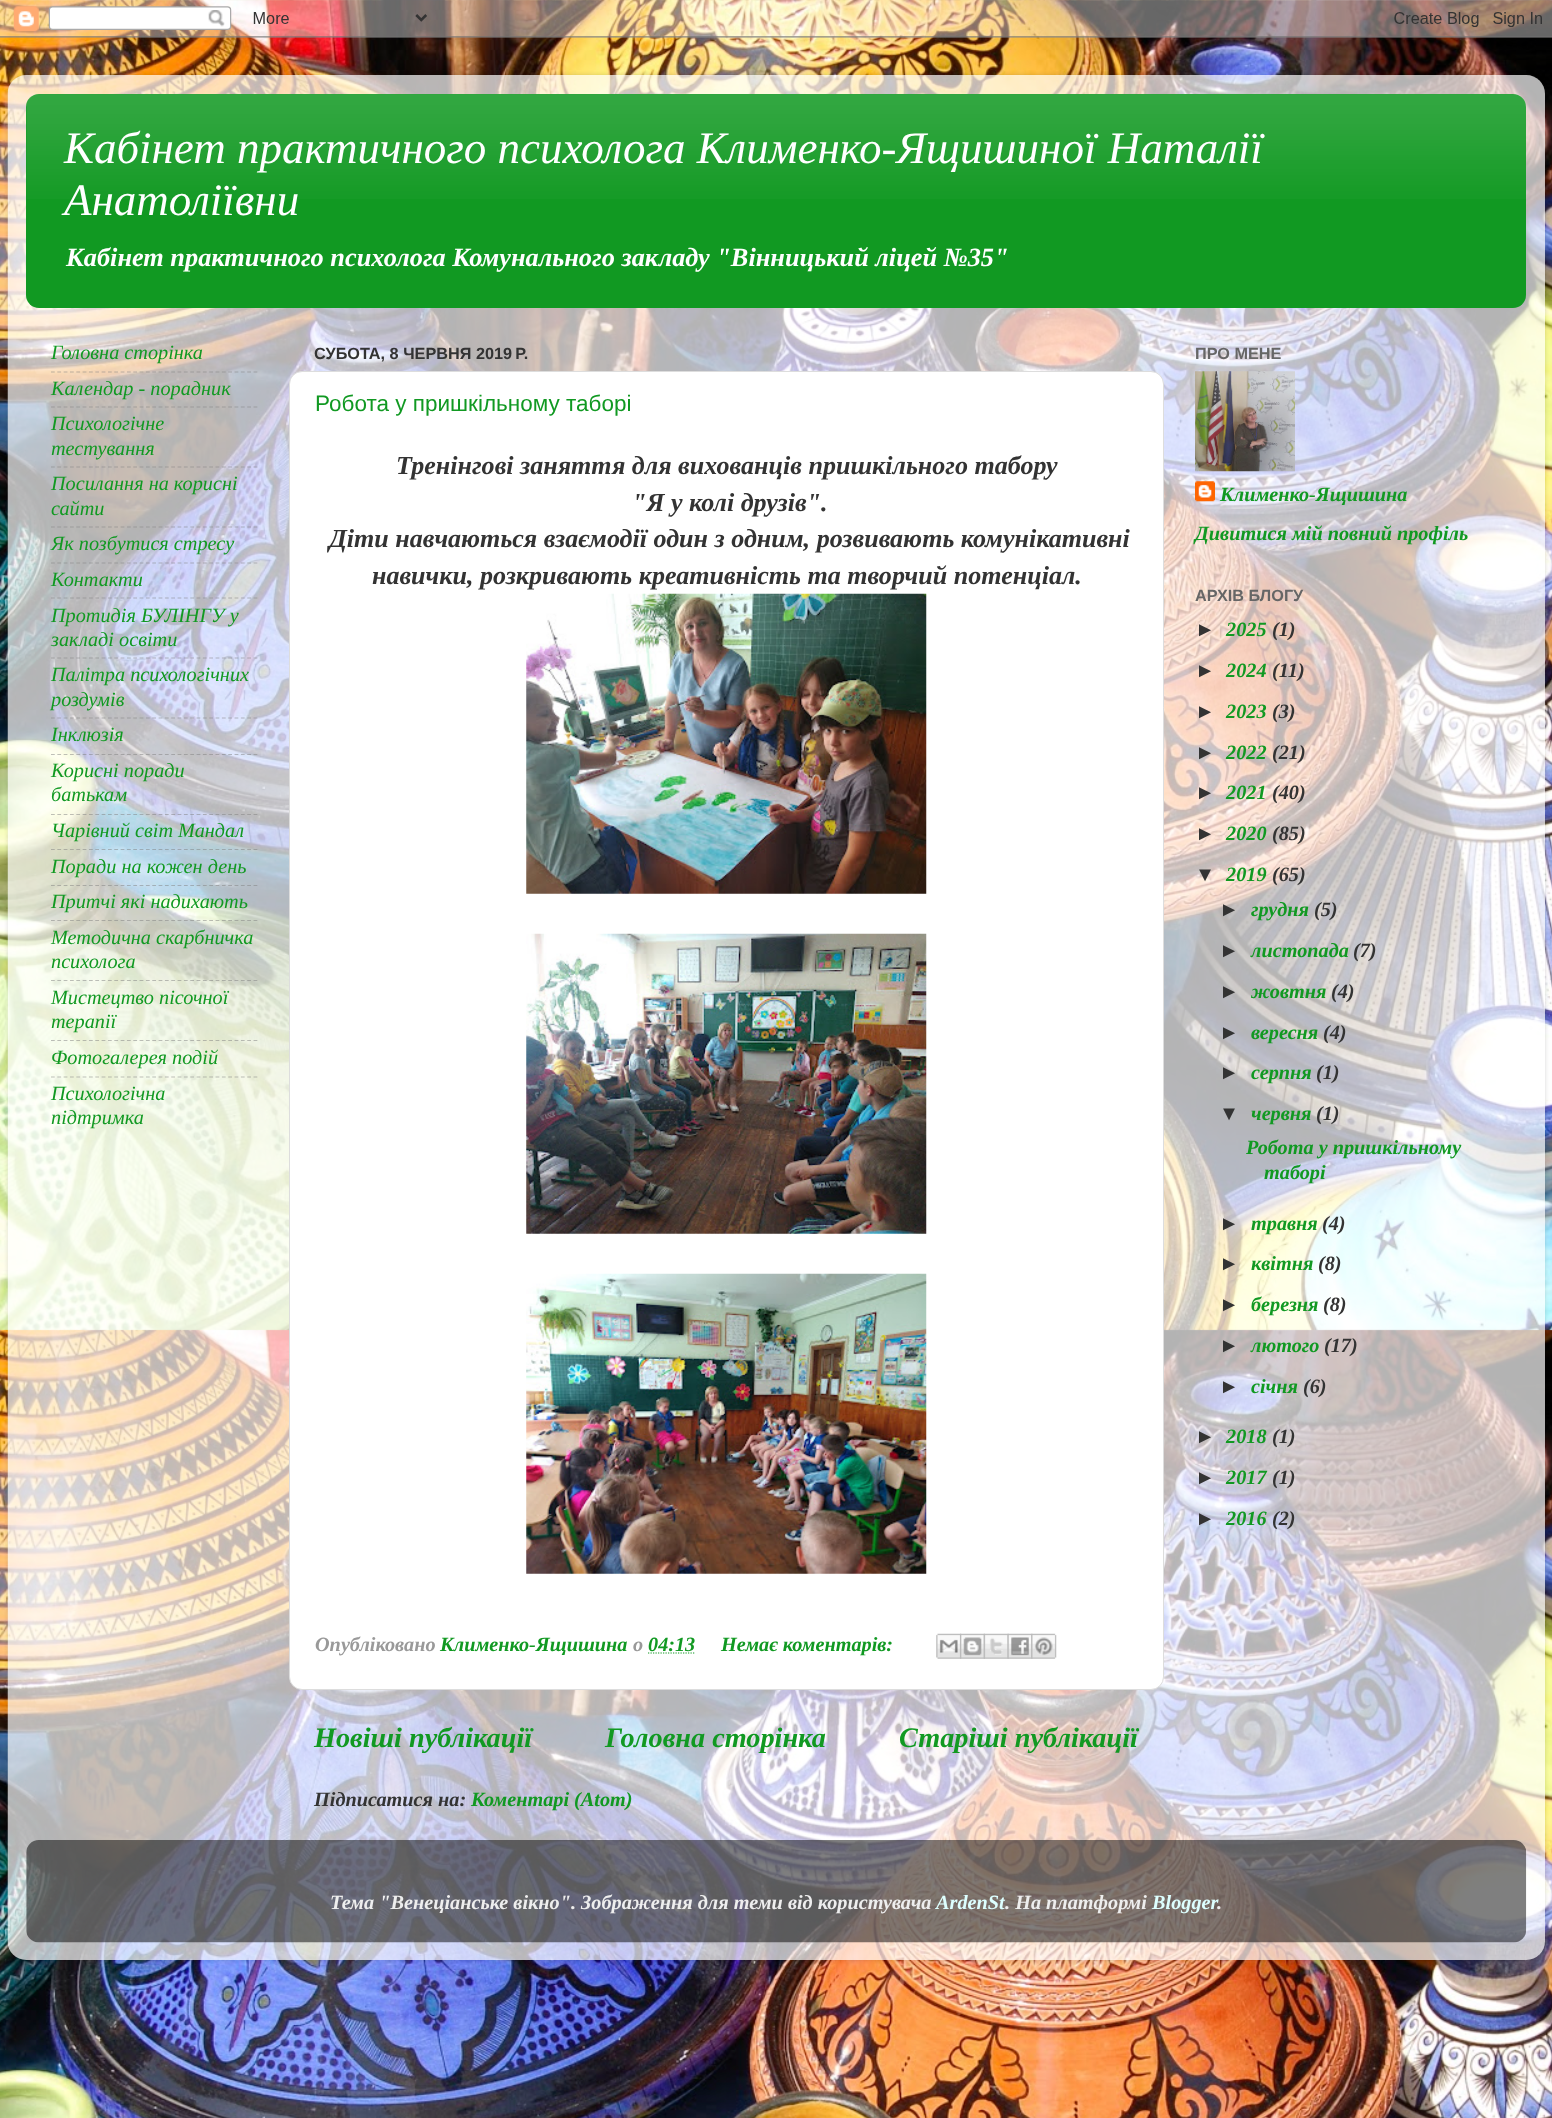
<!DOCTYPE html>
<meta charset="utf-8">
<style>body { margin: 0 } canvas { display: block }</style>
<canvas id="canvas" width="1552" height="2118"></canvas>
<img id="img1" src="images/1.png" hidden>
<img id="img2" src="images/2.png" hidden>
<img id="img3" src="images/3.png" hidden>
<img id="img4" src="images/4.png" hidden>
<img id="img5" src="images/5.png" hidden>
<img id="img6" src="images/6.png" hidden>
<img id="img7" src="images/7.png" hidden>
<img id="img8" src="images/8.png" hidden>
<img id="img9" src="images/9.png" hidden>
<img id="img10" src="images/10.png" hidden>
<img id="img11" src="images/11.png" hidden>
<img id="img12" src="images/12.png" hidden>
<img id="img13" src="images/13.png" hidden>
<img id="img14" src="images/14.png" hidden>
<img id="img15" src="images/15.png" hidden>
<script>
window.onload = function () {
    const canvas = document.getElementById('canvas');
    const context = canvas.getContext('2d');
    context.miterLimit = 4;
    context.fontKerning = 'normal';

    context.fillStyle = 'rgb(255, 255, 255)';
    context.fillRect(0, 0, 1552, 2118);
    context.drawImage(document.getElementById('img1'), 0, 0, 1552, 2118);
    context.drawImage(document.getElementById('img2'), 0, 0, 1552, 38);
    context.save();
    context.beginPath();
    context.moveTo(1, 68);
    context.lineTo(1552, 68);
    context.lineTo(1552, 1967);
    context.lineTo(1, 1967);
    context.closePath();
    context.moveTo(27, 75);
    context.lineTo(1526, 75);
    context.bezierCurveTo(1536.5, 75, 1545, 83.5, 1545, 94);
    context.lineTo(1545, 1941);
    context.bezierCurveTo(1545, 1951.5, 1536.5, 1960, 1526, 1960);
    context.lineTo(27, 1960);
    context.bezierCurveTo(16.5, 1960, 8, 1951.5, 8, 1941);
    context.lineTo(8, 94);
    context.bezierCurveTo(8, 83.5, 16.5, 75, 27, 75);
    context.closePath();
    context.clip('evenodd');
    context.fillStyle = 'rgba(0, 0, 0, 0.15)';
    context.filter = 'blur(2px)';
    context.beginPath();
    context.roundRect(8, 75, 1537, 1885, 19);
    context.fill();
    context.filter = 'none';
    context.restore();
    context.drawImage(document.getElementById('img3'), 7, 75, 1538, 1885);
    context.fillStyle = 'rgb(17, 153, 34)';
    context.beginPath();
    context.roundRect(26, 94, 1500, 214, 13);
    context.fill();
    context.drawImage(document.getElementById('img4'), 26, 94, 1500, 105);
    context.beginPath();
    context.moveTo(51, 372);
    context.lineTo(257.5, 372);
    context.strokeStyle = 'rgba(128, 128, 128, 0.5)';
    context.lineWidth = 1.2;
    context.setLineDash([3.75, 2.58]);
    context.stroke();
    context.beginPath();
    context.moveTo(51, 407);
    context.lineTo(257.5, 407);
    context.stroke();
    context.beginPath();
    context.moveTo(51, 467);
    context.lineTo(257.5, 467);
    context.stroke();
    context.beginPath();
    context.moveTo(51, 527);
    context.lineTo(257.5, 527);
    context.stroke();
    context.beginPath();
    context.moveTo(51, 563);
    context.lineTo(257.5, 563);
    context.stroke();
    context.beginPath();
    context.moveTo(51, 598);
    context.lineTo(257.5, 598);
    context.stroke();
    context.beginPath();
    context.moveTo(51, 658);
    context.lineTo(257.5, 658);
    context.stroke();
    context.beginPath();
    context.moveTo(51, 718);
    context.lineTo(257.5, 718);
    context.stroke();
    context.beginPath();
    context.moveTo(51, 754.5);
    context.lineTo(257.5, 754.5);
    context.stroke();
    context.beginPath();
    context.moveTo(51, 814.5);
    context.lineTo(257.5, 814.5);
    context.stroke();
    context.beginPath();
    context.moveTo(51, 849.5);
    context.lineTo(257.5, 849.5);
    context.stroke();
    context.beginPath();
    context.moveTo(51, 885.5);
    context.lineTo(257.5, 885.5);
    context.stroke();
    context.beginPath();
    context.moveTo(51, 920.5);
    context.lineTo(257.5, 920.5);
    context.stroke();
    context.beginPath();
    context.moveTo(51, 980.5);
    context.lineTo(257.5, 980.5);
    context.stroke();
    context.beginPath();
    context.moveTo(51, 1040.5);
    context.lineTo(257.5, 1040.5);
    context.stroke();
    context.beginPath();
    context.moveTo(51, 1077);
    context.lineTo(257.5, 1077);
    context.stroke();
    context.fillStyle = 'rgb(255, 255, 255)';
    context.beginPath();
    context.roundRect(289.5, 371.5, 874, 1318, 12.5);
    context.fill();
    context.strokeStyle = 'rgb(221, 221, 221)';
    context.lineWidth = 1;
    context.setLineDash([]);
    context.stroke();
    context.drawImage(document.getElementById('img5'), 526, 593, 401, 301);
    context.drawImage(document.getElementById('img6'), 526, 933, 401, 301);
    context.drawImage(document.getElementById('img7'), 526, 1273, 401, 301);
    context.beginPath();
    context.moveTo(648, 1653);
    context.lineTo(695, 1653);
    context.strokeStyle = 'rgb(17, 153, 34)';
    context.lineWidth = 1.2;
    context.setLineDash([1.25, 1.25]);
    context.stroke();
    context.drawImage(document.getElementById('img8'), 936, 1633, 26, 26);
    context.drawImage(document.getElementById('img9'), 960, 1633, 25, 26);
    context.drawImage(document.getElementById('img10'), 983, 1633, 26, 26);
    context.drawImage(document.getElementById('img11'), 1007, 1633, 26, 26);
    context.drawImage(document.getElementById('img12'), 1031, 1633, 26, 26);
    context.drawImage(document.getElementById('img13'), 1195, 371, 100, 101);
    context.drawImage(document.getElementById('img14'), 1195, 481, 20, 21);
    context.drawImage(document.getElementById('img15'), 26, 1840, 1501, 103);
    context.font = 'italic 45px Liberation Serif';
    context.fillText('Кабінет практичного психолога Клименко-Ящишиної Наталії', 64, 163);
    context.fillText('Анатоліївни', 64, 215);
    context.font = 'italic bold 26.3px Liberation Serif';
    context.fillText('Кабінет практичного психолога Комунального закладу "Вінницький ліцей №35"', 66, 266);
    context.font = 'italic 20.25px Liberation Serif';
    context.fillStyle = 'rgb(17, 153, 34)';
    context.fillText('Головна сторінка', 51, 359);
    context.fillText('Календар - порадник', 51, 395);
    context.fillText('Психологічне', 51, 430);
    context.fillText('тестування', 51, 455);
    context.fillText('Посилання на корисні', 51, 490);
    context.fillText('сайти', 51, 515);
    context.fillText('Як позбутися стресу', 51, 550);
    context.fillText('Контакти', 51, 586);
    context.fillText('Протидія БУЛІНГУ у', 51, 622);
    context.fillText('закладі освіти', 51, 646);
    context.fillText('Палітра психологічних', 51, 681);
    context.fillText('роздумів', 51, 706);
    context.fillText('Інклюзія', 51, 741);
    context.fillText('Корисні поради', 51, 777);
    context.fillText('батькам', 51, 801);
    context.fillText('Чарівний світ Мандал', 51, 837);
    context.fillText('Поради на кожен день', 51, 873);
    context.fillText('Притчі які надихають', 51, 908);
    context.fillText('Методична скарбничка', 51, 944);
    context.fillText('психолога', 51, 968);
    context.fillText('Мистецтво пісочної', 51, 1004);
    context.fillText('терапії', 51, 1028);
    context.fillText('Фотогалерея подій', 51, 1064);
    context.fillText('Психологічна', 51, 1100);
    context.fillText('підтримка', 51, 1124);
    context.font = 'bold 16.25px Liberation Sans';
    context.fillStyle = 'rgb(51, 51, 51)';
    context.fillText('СУБОТА, 8 ЧЕРВНЯ 2019 Р.', 314, 359);
    context.font = '22.5px Liberation Sans';
    context.fillStyle = 'rgb(17, 153, 34)';
    context.fillText('Робота у пришкільному таборі', 315, 411);
    context.font = 'italic bold 26.05px Liberation Serif';
    context.fillStyle = 'rgb(51, 51, 51)';
    context.fillText('Тренінгові заняття для вихованців пришкільного табору', 396, 474);
    context.fillText('"Я у колі друзів".', 632, 511);
    context.fillText('Діти навчаються взаємодії один з одним, розвивають комунікативні', 329, 547);
    context.fillText('навички, розкривають креативність та творчий потенціал.', 372, 584);
    context.font = 'italic bold 20.25px Liberation Serif';
    context.fillStyle = 'rgb(153, 153, 153)';
    context.fillText('Опубліковано', 315, 1651);
    context.fillStyle = 'rgb(17, 153, 34)';
    context.fillText('Клименко-Ящишина', 440, 1651);
    context.fillStyle = 'rgb(153, 153, 153)';
    context.fillText('о', 633, 1651);
    context.fillStyle = 'rgb(17, 153, 34)';
    context.fillText('04:13', 648, 1651);
    context.fillText('Немає коментарів:', 721, 1651);
    context.font = 'italic bold 28.25px Liberation Serif';
    context.fillText('Новіші публікації', 314, 1747);
    context.fillText('Головна сторінка', 605, 1747);
    context.save();
    context.beginPath();
    context.rect(314, 1718, 825, 40);
    context.clip();
    context.fillText('Старіші публікації', 899, 1747);
    context.restore();
    context.font = 'italic bold 20.25px Liberation Serif';
    context.fillStyle = 'rgb(51, 51, 51)';
    context.fillText('Підписатися на:', 314, 1806);
    context.fillStyle = 'rgb(17, 153, 34)';
    context.fillText('Коментарі (Atom)', 471, 1806);
    context.font = 'bold 16.25px Liberation Sans';
    context.fillStyle = 'rgb(102, 102, 102)';
    context.fillText('ПРО МЕНЕ', 1195, 359);
    context.font = 'italic bold 20.25px Liberation Serif';
    context.fillStyle = 'rgb(17, 153, 34)';
    context.fillText('Клименко-Ящишина', 1220, 501);
    context.fillText('Дивитися мій повний профіль', 1195, 540);
    context.font = 'bold 16.25px Liberation Sans';
    context.fillStyle = 'rgb(102, 102, 102)';
    context.fillText('АРХІВ БЛОГУ', 1195, 601);
    context.font = 'italic bold 20.25px Liberation Sans';
    context.fillStyle = 'rgb(51, 51, 51)';
    context.fillText('►', 1195, 636);
    context.font = 'italic bold 20.25px Liberation Serif';
    context.fillStyle = 'rgb(17, 153, 34)';
    context.fillText('2025', 1226, 636);
    context.fillStyle = 'rgb(51, 51, 51)';
    context.fillText('(1)', 1272, 636);
    context.font = 'italic bold 20.25px Liberation Sans';
    context.fillText('►', 1195, 677);
    context.font = 'italic bold 20.25px Liberation Serif';
    context.fillStyle = 'rgb(17, 153, 34)';
    context.fillText('2024', 1226, 677);
    context.fillStyle = 'rgb(51, 51, 51)';
    context.fillText('(11)', 1272, 677);
    context.font = 'italic bold 20.25px Liberation Sans';
    context.fillText('►', 1195, 718);
    context.font = 'italic bold 20.25px Liberation Serif';
    context.fillStyle = 'rgb(17, 153, 34)';
    context.fillText('2023', 1226, 718);
    context.fillStyle = 'rgb(51, 51, 51)';
    context.fillText('(3)', 1272, 718);
    context.font = 'italic bold 20.25px Liberation Sans';
    context.fillText('►', 1195, 759);
    context.font = 'italic bold 20.25px Liberation Serif';
    context.fillStyle = 'rgb(17, 153, 34)';
    context.fillText('2022', 1226, 759);
    context.fillStyle = 'rgb(51, 51, 51)';
    context.fillText('(21)', 1272, 759);
    context.font = 'italic bold 20.25px Liberation Sans';
    context.fillText('►', 1195, 799);
    context.font = 'italic bold 20.25px Liberation Serif';
    context.fillStyle = 'rgb(17, 153, 34)';
    context.fillText('2021', 1226, 799);
    context.fillStyle = 'rgb(51, 51, 51)';
    context.fillText('(40)', 1272, 799);
    context.font = 'italic bold 20.25px Liberation Sans';
    context.fillText('►', 1195, 840);
    context.font = 'italic bold 20.25px Liberation Serif';
    context.fillStyle = 'rgb(17, 153, 34)';
    context.fillText('2020', 1226, 840);
    context.fillStyle = 'rgb(51, 51, 51)';
    context.fillText('(85)', 1272, 840);
    context.font = 'italic bold 20.25px Liberation Sans';
    context.fillText('▼', 1195, 881);
    context.font = 'italic bold 20.25px Liberation Serif';
    context.fillStyle = 'rgb(17, 153, 34)';
    context.fillText('2019', 1226, 881);
    context.fillStyle = 'rgb(51, 51, 51)';
    context.fillText('(65)', 1272, 881);
    context.font = 'italic bold 20.25px Liberation Sans';
    context.fillText('►', 1219, 916);
    context.font = 'italic bold 20.25px Liberation Serif';
    context.fillStyle = 'rgb(17, 153, 34)';
    context.fillText('грудня', 1251, 916);
    context.fillStyle = 'rgb(51, 51, 51)';
    context.fillText('(5)', 1314, 916);
    context.font = 'italic bold 20.25px Liberation Sans';
    context.fillText('►', 1219, 957);
    context.font = 'italic bold 20.25px Liberation Serif';
    context.fillStyle = 'rgb(17, 153, 34)';
    context.fillText('листопада', 1251, 957);
    context.fillStyle = 'rgb(51, 51, 51)';
    context.fillText('(7)', 1353, 957);
    context.font = 'italic bold 20.25px Liberation Sans';
    context.fillText('►', 1219, 998);
    context.font = 'italic bold 20.25px Liberation Serif';
    context.fillStyle = 'rgb(17, 153, 34)';
    context.fillText('жовтня', 1251, 998);
    context.fillStyle = 'rgb(51, 51, 51)';
    context.fillText('(4)', 1331, 998);
    context.font = 'italic bold 20.25px Liberation Sans';
    context.fillText('►', 1219, 1039);
    context.font = 'italic bold 20.25px Liberation Serif';
    context.fillStyle = 'rgb(17, 153, 34)';
    context.fillText('вересня', 1251, 1039);
    context.fillStyle = 'rgb(51, 51, 51)';
    context.fillText('(4)', 1323, 1039);
    context.font = 'italic bold 20.25px Liberation Sans';
    context.fillText('►', 1219, 1079);
    context.font = 'italic bold 20.25px Liberation Serif';
    context.fillStyle = 'rgb(17, 153, 34)';
    context.fillText('серпня', 1251, 1079);
    context.fillStyle = 'rgb(51, 51, 51)';
    context.fillText('(1)', 1316, 1079);
    context.font = 'italic bold 20.25px Liberation Sans';
    context.fillText('▼', 1219, 1120);
    context.font = 'italic bold 20.25px Liberation Serif';
    context.fillStyle = 'rgb(17, 153, 34)';
    context.fillText('червня', 1251, 1120);
    context.fillStyle = 'rgb(51, 51, 51)';
    context.fillText('(1)', 1316, 1120);
    context.fillStyle = 'rgb(17, 153, 34)';
    context.fillText('Робота у пришкільному', 1246, 1154);
    context.fillText('таборі', 1264, 1179);
    context.font = 'italic bold 20.25px Liberation Sans';
    context.fillStyle = 'rgb(51, 51, 51)';
    context.fillText('►', 1219, 1230);
    context.font = 'italic bold 20.25px Liberation Serif';
    context.fillStyle = 'rgb(17, 153, 34)';
    context.fillText('травня', 1251, 1230);
    context.fillStyle = 'rgb(51, 51, 51)';
    context.fillText('(4)', 1322, 1230);
    context.font = 'italic bold 20.25px Liberation Sans';
    context.fillText('►', 1219, 1270);
    context.font = 'italic bold 20.25px Liberation Serif';
    context.fillStyle = 'rgb(17, 153, 34)';
    context.fillText('квітня', 1251, 1270);
    context.fillStyle = 'rgb(51, 51, 51)';
    context.fillText('(8)', 1318, 1270);
    context.font = 'italic bold 20.25px Liberation Sans';
    context.fillText('►', 1219, 1311);
    context.font = 'italic bold 20.25px Liberation Serif';
    context.fillStyle = 'rgb(17, 153, 34)';
    context.fillText('березня', 1251, 1311);
    context.fillStyle = 'rgb(51, 51, 51)';
    context.fillText('(8)', 1323, 1311);
    context.font = 'italic bold 20.25px Liberation Sans';
    context.fillText('►', 1219, 1352);
    context.font = 'italic bold 20.25px Liberation Serif';
    context.fillStyle = 'rgb(17, 153, 34)';
    context.fillText('лютого', 1251, 1352);
    context.fillStyle = 'rgb(51, 51, 51)';
    context.fillText('(17)', 1324, 1352);
    context.font = 'italic bold 20.25px Liberation Sans';
    context.fillText('►', 1219, 1393);
    context.font = 'italic bold 20.25px Liberation Serif';
    context.fillStyle = 'rgb(17, 153, 34)';
    context.fillText('січня', 1251, 1393);
    context.fillStyle = 'rgb(51, 51, 51)';
    context.fillText('(6)', 1303, 1393);
    context.font = 'italic bold 20.25px Liberation Sans';
    context.fillText('►', 1195, 1443);
    context.font = 'italic bold 20.25px Liberation Serif';
    context.fillStyle = 'rgb(17, 153, 34)';
    context.fillText('2018', 1226, 1443);
    context.fillStyle = 'rgb(51, 51, 51)';
    context.fillText('(1)', 1272, 1443);
    context.font = 'italic bold 20.25px Liberation Sans';
    context.fillText('►', 1195, 1484);
    context.font = 'italic bold 20.25px Liberation Serif';
    context.fillStyle = 'rgb(17, 153, 34)';
    context.fillText('2017', 1226, 1484);
    context.fillStyle = 'rgb(51, 51, 51)';
    context.fillText('(1)', 1272, 1484);
    context.font = 'italic bold 20.25px Liberation Sans';
    context.fillText('►', 1195, 1525);
    context.font = 'italic bold 20.25px Liberation Serif';
    context.fillStyle = 'rgb(17, 153, 34)';
    context.fillText('2016', 1226, 1525);
    context.fillStyle = 'rgb(51, 51, 51)';
    context.fillText('(2)', 1272, 1525);
    context.fillStyle = 'rgb(238, 238, 238)';
    context.fillText('Тема "Венеціанське вікно". Зображення для теми від користувача', 330, 1909);
    context.fillStyle = 'rgb(221, 255, 255)';
    context.fillText('ArdenSt', 936, 1909);
    context.fillStyle = 'rgb(238, 238, 238)';
    context.fillText('. На платформі', 1005, 1909);
    context.fillStyle = 'rgb(221, 255, 255)';
    context.fillText('Blogger', 1152, 1909);
    context.fillStyle = 'rgb(238, 238, 238)';
    context.fillText('.', 1217, 1909);
};
</script>
